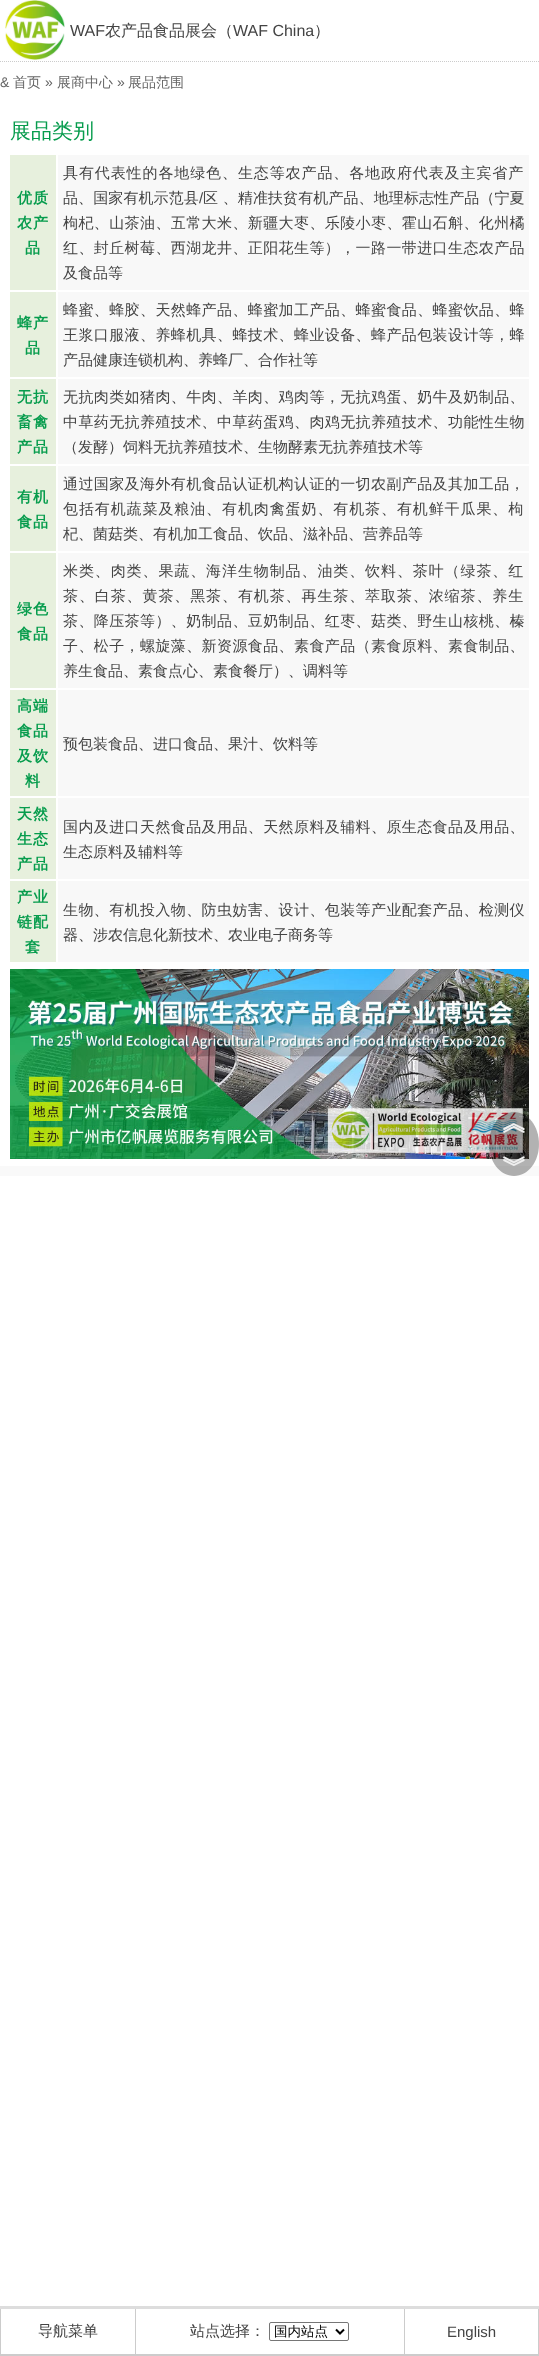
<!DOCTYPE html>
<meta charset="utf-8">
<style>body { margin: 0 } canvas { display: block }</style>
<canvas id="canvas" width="539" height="2356"></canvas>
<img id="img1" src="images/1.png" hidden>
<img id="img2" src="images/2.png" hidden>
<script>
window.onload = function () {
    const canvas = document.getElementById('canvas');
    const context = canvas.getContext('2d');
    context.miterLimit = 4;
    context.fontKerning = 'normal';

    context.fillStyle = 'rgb(255, 255, 255)';
    context.fillRect(0, 0, 539, 2356);
    context.beginPath();
    context.moveTo(0, 61.5);
    context.lineTo(539, 61.5);
    context.strokeStyle = 'rgb(204, 204, 204)';
    context.setLineDash([1, 1]);
    context.stroke();
    context.drawImage(document.getElementById('img1'), 5, 0, 60, 60);
    context.fillStyle = 'rgb(249, 249, 249)';
    context.fillRect(0, 1166, 539, 10);
    context.fillStyle = 'rgb(231, 240, 221)';
    context.fillRect(10, 155, 46, 135);
    context.fillStyle = 'rgb(248, 248, 248)';
    context.fillRect(58, 155, 471, 135);
    context.fillStyle = 'rgb(231, 240, 221)';
    context.fillRect(10, 292, 46, 85);
    context.fillStyle = 'rgb(248, 248, 248)';
    context.fillRect(58, 292, 471, 85);
    context.fillStyle = 'rgb(231, 240, 221)';
    context.fillRect(10, 379, 46, 85);
    context.fillStyle = 'rgb(248, 248, 248)';
    context.fillRect(58, 379, 471, 85);
    context.fillStyle = 'rgb(231, 240, 221)';
    context.fillRect(10, 466, 46, 85);
    context.fillStyle = 'rgb(248, 248, 248)';
    context.fillRect(58, 466, 471, 85);
    context.fillStyle = 'rgb(231, 240, 221)';
    context.fillRect(10, 553, 46, 135);
    context.fillStyle = 'rgb(248, 248, 248)';
    context.fillRect(58, 553, 471, 135);
    context.fillStyle = 'rgb(231, 240, 221)';
    context.fillRect(10, 690, 46, 106);
    context.fillStyle = 'rgb(248, 248, 248)';
    context.fillRect(58, 690, 471, 106);
    context.fillStyle = 'rgb(231, 240, 221)';
    context.fillRect(10, 798, 46, 81);
    context.fillStyle = 'rgb(248, 248, 248)';
    context.fillRect(58, 798, 471, 81);
    context.fillStyle = 'rgb(231, 240, 221)';
    context.fillRect(10, 881, 46, 81);
    context.fillStyle = 'rgb(248, 248, 248)';
    context.fillRect(58, 881, 471, 81);
    context.drawImage(document.getElementById('img2'), 10, 969, 519, 190);
    context.fillStyle = 'rgba(0, 0, 0, 0.3)';
    context.beginPath();
    context.moveTo(514, 1112);
    context.bezierCurveTo(500, 1112, 489, 1126, 489, 1144);
    context.bezierCurveTo(489, 1162, 500, 1176, 514, 1176);
    context.bezierCurveTo(528, 1176, 539, 1162, 539, 1144);
    context.bezierCurveTo(539, 1126, 528, 1112, 514, 1112);
    context.closePath();
    context.fill();
    context.fillStyle = 'rgb(204, 204, 204)';
    context.fillRect(0, 2307, 1, 49);
    context.fillRect(135, 2307, 1, 49);
    context.fillRect(538, 2307, 1, 49);
    context.fillRect(404, 2307, 1, 49);
    context.fillRect(0, 2354, 539, 2);
    context.fillStyle = 'rgb(221, 221, 221)';
    context.fillRect(0, 2306, 539, 3);
    context.beginPath();
    context.roundRect(269.5, 2322.5, 79, 18, 1.5);
    context.strokeStyle = 'rgb(118, 118, 118)';
    context.setLineDash([]);
    context.stroke();
    context.beginPath();
    context.moveTo(336, 2329.5);
    context.lineTo(340, 2333.5);
    context.lineTo(344, 2329.5);
    context.strokeStyle = 'rgb(0, 0, 0)';
    context.lineWidth = 2;
    context.stroke();
    context.font = '16px Liberation Sans';
    context.fillStyle = 'rgb(68, 68, 68)';
    context.fillText('WAF', 70, 36);
    context.font = '500 16px WenQuanYi Zen Hei';
    context.fillText('农产品食品展会（', 105, 36);
    context.font = '16px Liberation Sans';
    context.fillText('WAF China', 233, 36);
    context.font = '500 16px WenQuanYi Zen Hei';
    context.fillText('）', 314, 36);
    context.font = '14px Liberation Sans';
    context.fillStyle = 'rgb(102, 102, 102)';
    context.fillText('&', 0, 87);
    context.font = '500 14px WenQuanYi Zen Hei';
    context.fillText('首页', 13, 87);
    context.font = '14px Liberation Sans';
    context.fillText('»', 45, 87);
    context.font = '500 14px WenQuanYi Zen Hei';
    context.fillText('展商中心', 57, 87);
    context.font = '14px Liberation Sans';
    context.fillText('»', 117, 87);
    context.font = '500 14px WenQuanYi Zen Hei';
    context.fillText('展品范围', 128, 87);
    context.font = '500 21px WenQuanYi Zen Hei';
    context.fillStyle = 'rgb(7, 156, 77)';
    context.fillText('展品类别', 10, 138);
    context.letterSpacing = '1px';
    context.font = 'bold 15px WenQuanYi Zen Hei';
    context.fillText('优质', 17, 203);
    context.fillText('农产', 17, 228);
    context.fillText('品', 25, 253);
    context.letterSpacing = '0.9px';
    context.font = '500 15px WenQuanYi Zen Hei';
    context.fillStyle = 'rgb(68, 68, 68)';
    context.fillText('具有代表性的各地绿色、生态等农产品、各地政府代表及主宾省产', 63, 178);
    context.letterSpacing = '0.1px';
    context.fillText('品、国家有机示范县', 63, 203);
    context.font = '15px Liberation Sans';
    context.fillText('/', 199, 203);
    context.font = '500 15px WenQuanYi Zen Hei';
    context.fillText('区 、精准扶贫有机产品、地理标志性产品（宁夏', 203, 203);
    context.letterSpacing = '0.4px';
    context.fillText('枸杞、山茶油、五常大米、新疆大枣、乐陵小枣、霍山石斛、化州橘', 63, 228);
    context.fillText('红、封丘树莓、西湖龙井、正阳花生等），一路一带进口生态农产品', 63, 253);
    context.letterSpacing = '0px';
    context.fillText('及食品等', 63, 278);
    context.letterSpacing = '1px';
    context.font = 'bold 15px WenQuanYi Zen Hei';
    context.fillStyle = 'rgb(7, 156, 77)';
    context.fillText('蜂产', 17, 328);
    context.fillText('品', 25, 353);
    context.letterSpacing = '0.4px';
    context.font = '500 15px WenQuanYi Zen Hei';
    context.fillStyle = 'rgb(68, 68, 68)';
    context.fillText('蜂蜜、蜂胶、天然蜂产品、蜂蜜加工产品、蜂蜜食品、蜂蜜饮品、蜂', 63, 315);
    context.fillText('王浆口服液、养蜂机具、蜂技术、蜂业设备、蜂产品包装设计等，蜂', 63, 340);
    context.letterSpacing = '0px';
    context.fillText('产品健康连锁机构、养蜂厂、合作社等', 63, 365);
    context.letterSpacing = '1px';
    context.font = 'bold 15px WenQuanYi Zen Hei';
    context.fillStyle = 'rgb(7, 156, 77)';
    context.fillText('无抗', 17, 402);
    context.fillText('畜禽', 17, 427);
    context.fillText('产品', 17, 452);
    context.letterSpacing = '0.4px';
    context.font = '500 15px WenQuanYi Zen Hei';
    context.fillStyle = 'rgb(68, 68, 68)';
    context.fillText('无抗肉类如猪肉、牛肉、羊肉、鸡肉等，无抗鸡蛋、奶牛及奶制品、', 63, 402);
    context.fillText('中草药无抗养殖技术、中草药蛋鸡、肉鸡无抗养殖技术、功能性生物', 63, 427);
    context.letterSpacing = '0px';
    context.fillText('（发酵）饲料无抗养殖技术、生物酵素无抗养殖技术等', 63, 452);
    context.letterSpacing = '1px';
    context.font = 'bold 15px WenQuanYi Zen Hei';
    context.fillStyle = 'rgb(7, 156, 77)';
    context.fillText('有机', 17, 502);
    context.fillText('食品', 17, 527);
    context.letterSpacing = '0.4px';
    context.font = '500 15px WenQuanYi Zen Hei';
    context.fillStyle = 'rgb(68, 68, 68)';
    context.fillText('通过国家及海外有机食品认证机构认证的一切农副产品及其加工品，', 63, 489);
    context.letterSpacing = '0.9px';
    context.fillText('包括有机蔬菜及粮油、有机肉禽蛋奶、有机茶、有机鲜干瓜果、枸', 63, 514);
    context.letterSpacing = '0px';
    context.fillText('杞、菌菇类、有机加工食品、饮品、滋补品、营养品等', 63, 539);
    context.letterSpacing = '1px';
    context.font = 'bold 15px WenQuanYi Zen Hei';
    context.fillStyle = 'rgb(7, 156, 77)';
    context.fillText('绿色', 17, 614);
    context.fillText('食品', 17, 639);
    context.letterSpacing = '0.9px';
    context.font = '500 15px WenQuanYi Zen Hei';
    context.fillStyle = 'rgb(68, 68, 68)';
    context.fillText('米类、肉类、果蔬、海洋生物制品、油类、饮料、茶叶（绿茶、红', 63, 576);
    context.fillText('茶、白茶、黄茶、黑茶、有机茶、再生茶、萃取茶、浓缩茶、养生', 63, 601);
    context.letterSpacing = '0.4px';
    context.fillText('茶、降压茶等）、奶制品、豆奶制品、红枣、菇类、野生山核桃、榛', 63, 626);
    context.fillText('子、松子，螺旋藻、新资源食品、素食产品（素食原料、素食制品、', 63, 651);
    context.letterSpacing = '0px';
    context.fillText('养生食品、素食点心、素食餐厅）、调料等', 63, 676);
    context.letterSpacing = '1px';
    context.font = 'bold 15px WenQuanYi Zen Hei';
    context.fillStyle = 'rgb(7, 156, 77)';
    context.fillText('高端', 17, 711);
    context.fillText('食品', 17, 736);
    context.fillText('及饮', 17, 761);
    context.fillText('料', 25, 786);
    context.letterSpacing = '0px';
    context.font = '500 15px WenQuanYi Zen Hei';
    context.fillStyle = 'rgb(68, 68, 68)';
    context.fillText('预包装食品、进口食品、果汁、饮料等', 63, 749);
    context.letterSpacing = '1px';
    context.font = 'bold 15px WenQuanYi Zen Hei';
    context.fillStyle = 'rgb(7, 156, 77)';
    context.fillText('天然', 17, 819);
    context.fillText('生态', 17, 844);
    context.fillText('产品', 17, 869);
    context.letterSpacing = '0.4px';
    context.font = '500 15px WenQuanYi Zen Hei';
    context.fillStyle = 'rgb(68, 68, 68)';
    context.fillText('国内及进口天然食品及用品、天然原料及辅料、原生态食品及用品、', 63, 832);
    context.letterSpacing = '0px';
    context.fillText('生态原料及辅料等', 63, 857);
    context.letterSpacing = '1px';
    context.font = 'bold 15px WenQuanYi Zen Hei';
    context.fillStyle = 'rgb(7, 156, 77)';
    context.fillText('产业', 17, 902);
    context.fillText('链配', 17, 927);
    context.fillText('套', 25, 952);
    context.letterSpacing = '0.4px';
    context.font = '500 15px WenQuanYi Zen Hei';
    context.fillStyle = 'rgb(68, 68, 68)';
    context.fillText('生物、有机投入物、防虫妨害、设计、包装等产业配套产品、检测仪', 63, 915);
    context.letterSpacing = '0px';
    context.fillText('器、涉农信息化新技术、农业电子商务等', 63, 940);
    context.font = 'bold 25px WenQuanYi Zen Hei';
    context.fillStyle = 'rgb(239, 239, 239)';
    context.fillText('︽', 502, 1131);
    context.fillText('︾', 502, 1174);
    context.font = '500 15px WenQuanYi Zen Hei';
    context.fillStyle = 'rgb(68, 68, 68)';
    context.fillText('导航菜单', 38, 2336);
    context.fillText('站点选择：', 190, 2336);
    context.font = '500 13.5px WenQuanYi Zen Hei';
    context.fillStyle = 'rgb(0, 0, 0)';
    context.fillText('国内站点', 274, 2336);
    context.font = '15px Liberation Sans';
    context.fillStyle = 'rgb(68, 68, 68)';
    context.fillText('English', 447, 2337);
};
</script>
